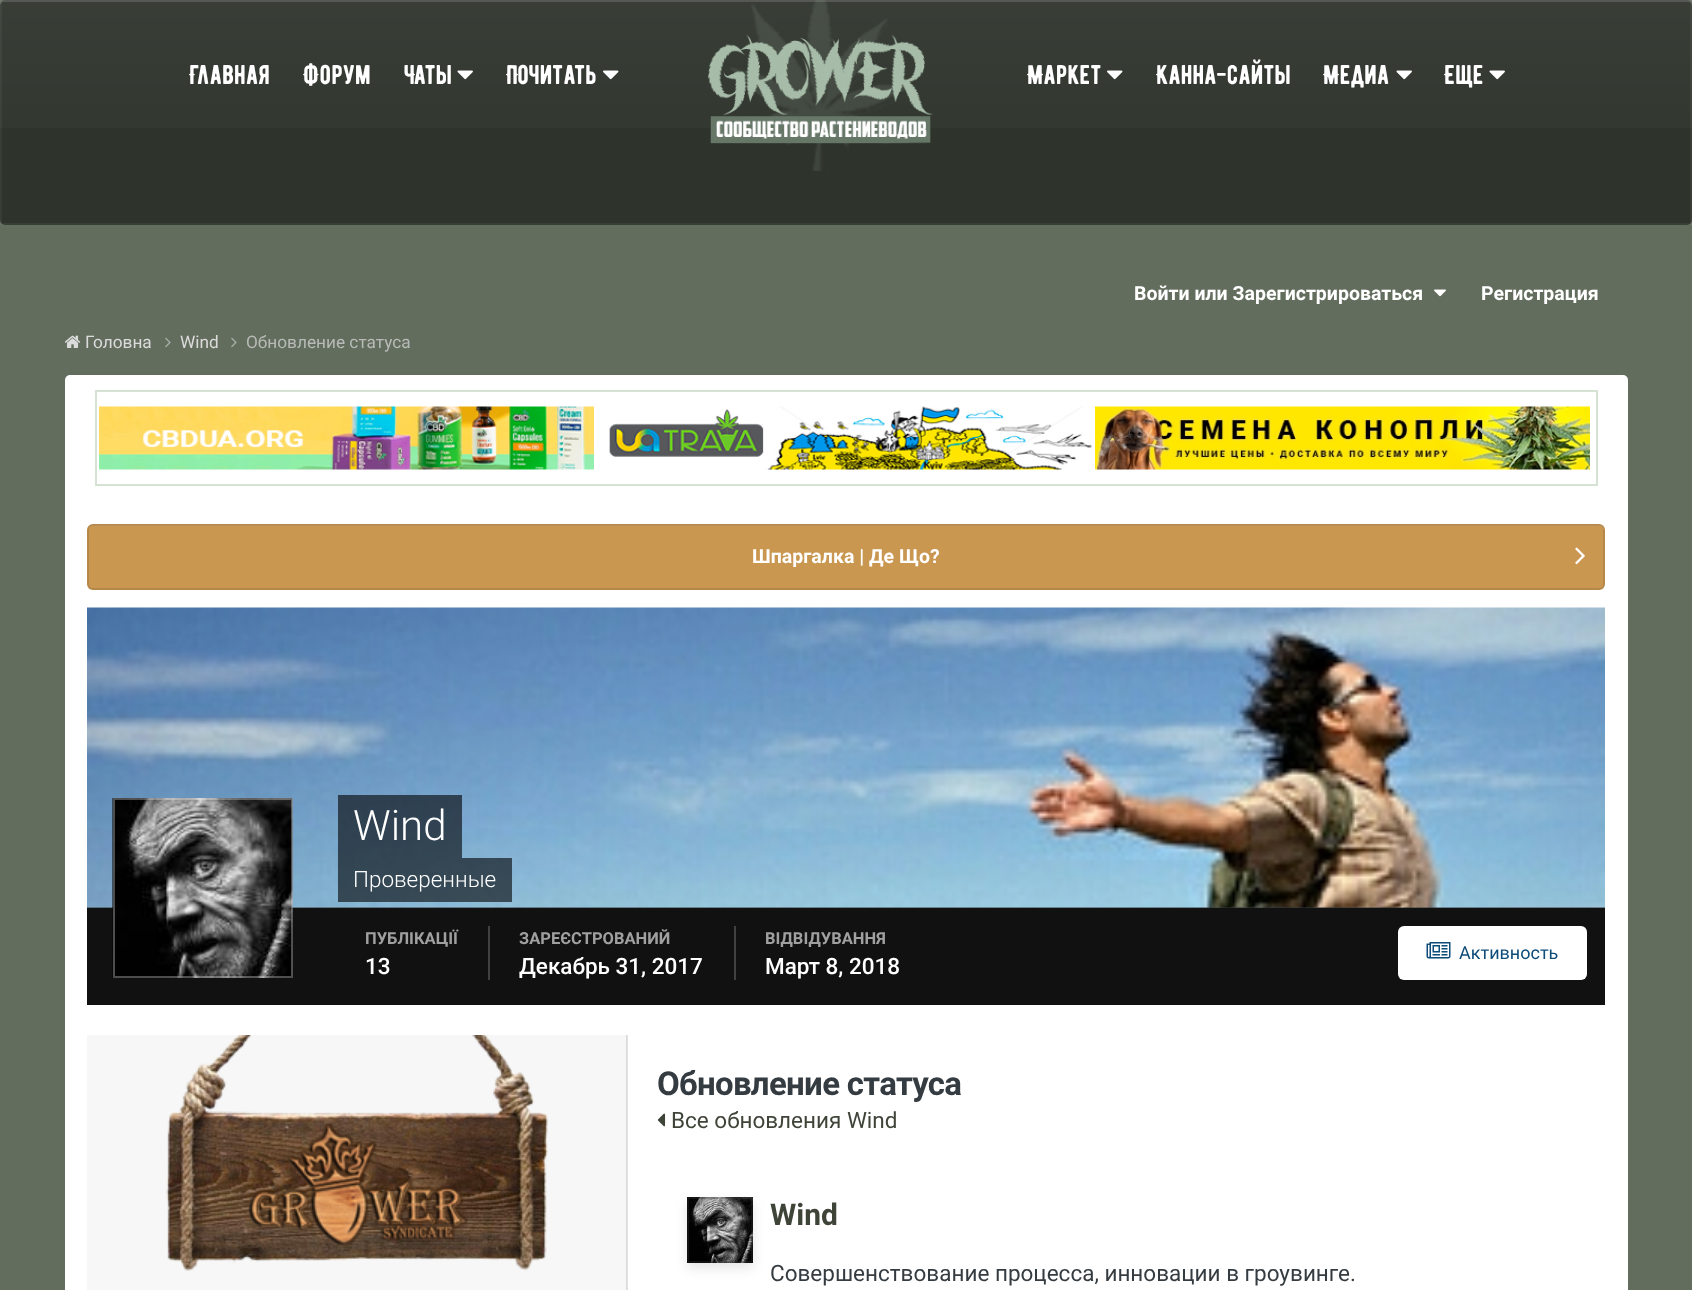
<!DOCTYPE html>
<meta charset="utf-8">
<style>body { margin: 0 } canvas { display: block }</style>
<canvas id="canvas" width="1692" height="1290"></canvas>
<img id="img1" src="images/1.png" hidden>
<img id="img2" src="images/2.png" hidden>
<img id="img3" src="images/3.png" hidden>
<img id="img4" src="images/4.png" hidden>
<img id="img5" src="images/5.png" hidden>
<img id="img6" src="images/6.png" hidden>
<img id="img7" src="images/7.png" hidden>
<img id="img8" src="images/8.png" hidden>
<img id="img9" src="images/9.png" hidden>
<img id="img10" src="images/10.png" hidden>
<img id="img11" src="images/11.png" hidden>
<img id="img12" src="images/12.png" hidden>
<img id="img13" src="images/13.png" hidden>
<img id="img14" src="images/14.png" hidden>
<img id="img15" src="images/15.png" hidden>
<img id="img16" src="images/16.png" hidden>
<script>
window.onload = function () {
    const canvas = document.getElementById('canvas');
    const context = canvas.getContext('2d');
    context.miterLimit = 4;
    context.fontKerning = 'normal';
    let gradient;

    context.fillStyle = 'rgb(99, 109, 94)';
    context.fillRect(0, 0, 1692, 1290);
    context.fillStyle = 'rgb(46, 51, 44)';
    context.beginPath();
    context.roundRect(0, 0, 1692, 225, 5);
    context.fill();
    gradient = context.createLinearGradient(846, 0, 846, 225);
    gradient.addColorStop(0, 'rgba(255, 255, 255, 0.05)');
    gradient.addColorStop(1, 'rgba(255, 255, 255, 0)');
    context.fillStyle = gradient;
    context.fillRect(0, 0, 1692, 128);
    context.strokeStyle = 'rgba(255, 255, 255, 0.05)';
    context.lineWidth = 2;
    context.strokeRect(1, 1, 1690, 223);
    context.fillStyle = 'rgba(255, 255, 255, 0.1)';
    context.beginPath();
    context.moveTo(4, 2);
    context.lineTo(1688, 2);
    context.bezierCurveTo(1690, 2, 1692, 4, 1692, 6);
    context.lineTo(1692, 5);
    context.bezierCurveTo(1692, 2, 1690, 0, 1687, 0);
    context.lineTo(5, 0);
    context.bezierCurveTo(2, 0, 0, 2, 0, 5);
    context.lineTo(0, 6);
    context.bezierCurveTo(0, 4, 2, 2, 4, 2);
    context.closePath();
    context.fill();
    context.drawImage(document.getElementById('img1'), 457, 70, 16, 10);
    context.drawImage(document.getElementById('img2'), 603, 70, 16, 10);
    context.drawImage(document.getElementById('img3'), 708, 0, 225, 171);
    context.drawImage(document.getElementById('img2'), 1107, 70, 16, 10);
    context.drawImage(document.getElementById('img1'), 1396, 70, 16, 10);
    context.drawImage(document.getElementById('img1'), 1489, 70, 16, 10);
    context.drawImage(document.getElementById('img4'), 1434, 289, 12, 8);
    context.drawImage(document.getElementById('img5'), 65, 335, 16, 13);
    context.drawImage(document.getElementById('img6'), 165, 337, 6, 11);
    context.drawImage(document.getElementById('img6'), 231, 337, 6, 11);
    context.fillStyle = 'rgb(255, 255, 255)';
    context.beginPath();
    context.roundRect(65, 375, 1563, 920, 5);
    context.fill();
    context.fillStyle = 'rgb(225, 226, 227)';
    context.fillRect(627, 1035, 1, 255);
    context.strokeStyle = 'rgb(213, 226, 212)';
    context.strokeRect(96, 391, 1501, 94);
    context.drawImage(document.getElementById('img7'), 99, 406, 495, 64);
    context.drawImage(document.getElementById('img8'), 609, 406, 483, 64);
    context.drawImage(document.getElementById('img9'), 1095, 406, 495, 64);
    context.fillStyle = 'rgb(202, 151, 81)';
    context.beginPath();
    context.roundRect(87, 524, 1518, 66, 6);
    context.fill();
    context.fillStyle = 'rgb(207, 161, 98)';
    context.beginPath();
    context.moveTo(93, 526);
    context.lineTo(1599, 526);
    context.bezierCurveTo(1601, 526, 1604, 529, 1604, 531);
    context.lineTo(1604, 530);
    context.bezierCurveTo(1604, 527, 1602, 525, 1599, 525);
    context.lineTo(94, 525);
    context.bezierCurveTo(92, 525, 90, 526, 89, 528);
    context.bezierCurveTo(90, 527, 92, 526, 93, 526);
    context.closePath();
    context.fill();
    context.beginPath();
    context.roundRect(88, 525, 1516, 64, 5);
    context.strokeStyle = 'rgba(0, 0, 0, 0.1)';
    context.stroke();
    context.drawImage(document.getElementById('img10'), 1575, 547, 10, 18);
    context.fillStyle = 'rgb(53, 60, 65)';
    context.fillRect(87, 907, 1518, 1);
    context.drawImage(document.getElementById('img11'), 87, 607, 1518, 301);
    context.fillStyle = 'rgb(17, 17, 17)';
    context.fillRect(87, 908, 1518, 97);
    context.drawImage(document.getElementById('img12'), 112, 798, 181, 180);
    context.strokeStyle = 'rgba(255, 255, 255, 0.3)';
    context.strokeRect(114, 799, 178, 178);
    context.fillStyle = 'rgba(0, 0, 0, 0.6)';
    context.fillRect(338, 795, 124, 63);
    context.fillRect(338, 858, 174, 44);
    context.fillStyle = 'rgb(65, 65, 65)';
    context.fillRect(488, 926, 2, 54);
    context.fillRect(734, 926, 2, 54);
    context.fillStyle = 'rgb(255, 255, 255)';
    context.beginPath();
    context.roundRect(1398, 926, 189, 54, 6);
    context.fill();
    context.drawImage(document.getElementById('img13'), 1426, 942, 25, 17);
    context.fillStyle = 'rgb(247, 247, 247)';
    context.fillRect(87, 1035, 539, 255);
    context.fillStyle = 'rgb(218, 219, 220)';
    context.fillRect(626, 1035, 1, 255);
    context.drawImage(document.getElementById('img14'), 166, 1035, 382, 236);
    context.drawImage(document.getElementById('img15'), 657, 1113, 9, 14);
    context.drawImage(document.getElementById('img16'), 687, 1197, 66, 66);
    context.save();
    context.beginPath();
    context.moveTo(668, 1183);
    context.lineTo(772, 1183);
    context.lineTo(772, 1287);
    context.lineTo(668, 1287);
    context.closePath();
    context.moveTo(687, 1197);
    context.lineTo(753, 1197);
    context.lineTo(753, 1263);
    context.lineTo(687, 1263);
    context.closePath();
    context.clip('evenodd');
    context.fillStyle = 'rgba(0, 0, 0, 0.1)';
    context.filter = 'blur(6px)';
    context.beginPath();
    context.rect(687, 1202, 66, 66);
    context.fill();
    context.filter = 'none';
    context.restore();
    context.strokeStyle = 'rgba(53, 60, 65, 0.3)';
    context.strokeRect(688, 1198, 64, 64);
    context.font = '27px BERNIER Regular';
    context.fillStyle = 'rgb(255, 255, 255)';
    context.fillText('Главная', 189, 84);
    context.fillText('Форум', 303, 84);
    context.fillText('Чаты', 404, 84);
    context.fillText('Почитать', 506, 84);
    context.fillText('Маркет', 1027, 84);
    context.fillText('Канна-сайты', 1156, 84);
    context.fillText('Медиа', 1323, 84);
    context.fillText('Еще', 1444, 84);
    context.font = 'bold 19.5px Roboto';
    context.fillText('Войти или Зарегистрироваться', 1134, 300);
    context.fillText('Регистрация', 1481, 300);
    context.font = '17.25px Roboto';
    context.fillStyle = 'rgb(219, 219, 219)';
    context.fillText('Головна', 85, 348);
    context.fillText('Wind', 180, 348);
    context.fillStyle = 'rgb(183, 186, 182)';
    context.fillText('Обновление статуса', 246, 348);
    context.font = 'bold 19.5px Roboto';
    context.fillStyle = 'rgb(255, 255, 255)';
    context.fillText('Шпаргалка | Де Що?', 752, 563);
    context.font = '300 42px Roboto';
    context.fillText('Wind', 353, 840);
    context.font = '300 22.5px Roboto';
    context.fillText('Проверенные', 353, 887);
    context.font = 'bold 16.5px Roboto';
    context.fillStyle = 'rgb(160, 160, 160)';
    context.fillText('ПУБЛІКАЦІЇ', 365, 944);
    context.font = '500 22.5px Roboto';
    context.fillStyle = 'rgb(255, 255, 255)';
    context.fillText('13', 365, 974);
    context.font = 'bold 16.5px Roboto';
    context.fillStyle = 'rgb(160, 160, 160)';
    context.fillText('ЗАРЕЄСТРОВАНИЙ', 519, 944);
    context.font = '500 22.5px Roboto';
    context.fillStyle = 'rgb(255, 255, 255)';
    context.fillText('Декабрь 31, 2017', 519, 974);
    context.font = 'bold 16.5px Roboto';
    context.fillStyle = 'rgb(160, 160, 160)';
    context.fillText('ВІДВІДУВАННЯ', 765, 944);
    context.font = '500 22.5px Roboto';
    context.fillStyle = 'rgb(255, 255, 255)';
    context.fillText('Март 8, 2018', 765, 974);
    context.font = '18px Roboto';
    context.fillStyle = 'rgb(14, 76, 121)';
    context.fillText('Активность', 1459, 959);
    context.letterSpacing = '-0.7px';
    context.font = 'bold 33px Roboto';
    context.fillStyle = 'rgb(53, 60, 65)';
    context.fillText('Обновление статуса', 657, 1095);
    context.letterSpacing = '0px';
    context.font = '22.5px Roboto';
    context.fillStyle = 'rgb(63, 68, 57)';
    context.fillText('Все обновления Wind', 671, 1128);
    context.font = 'bold 30px Roboto';
    context.fillText('Wind', 770, 1225);
    context.font = '22.5px Roboto';
    context.fillStyle = 'rgb(53, 60, 65)';
    context.fillText('Совершенствование процесса, инновации в гроувинге.', 770, 1281);
};
</script>
